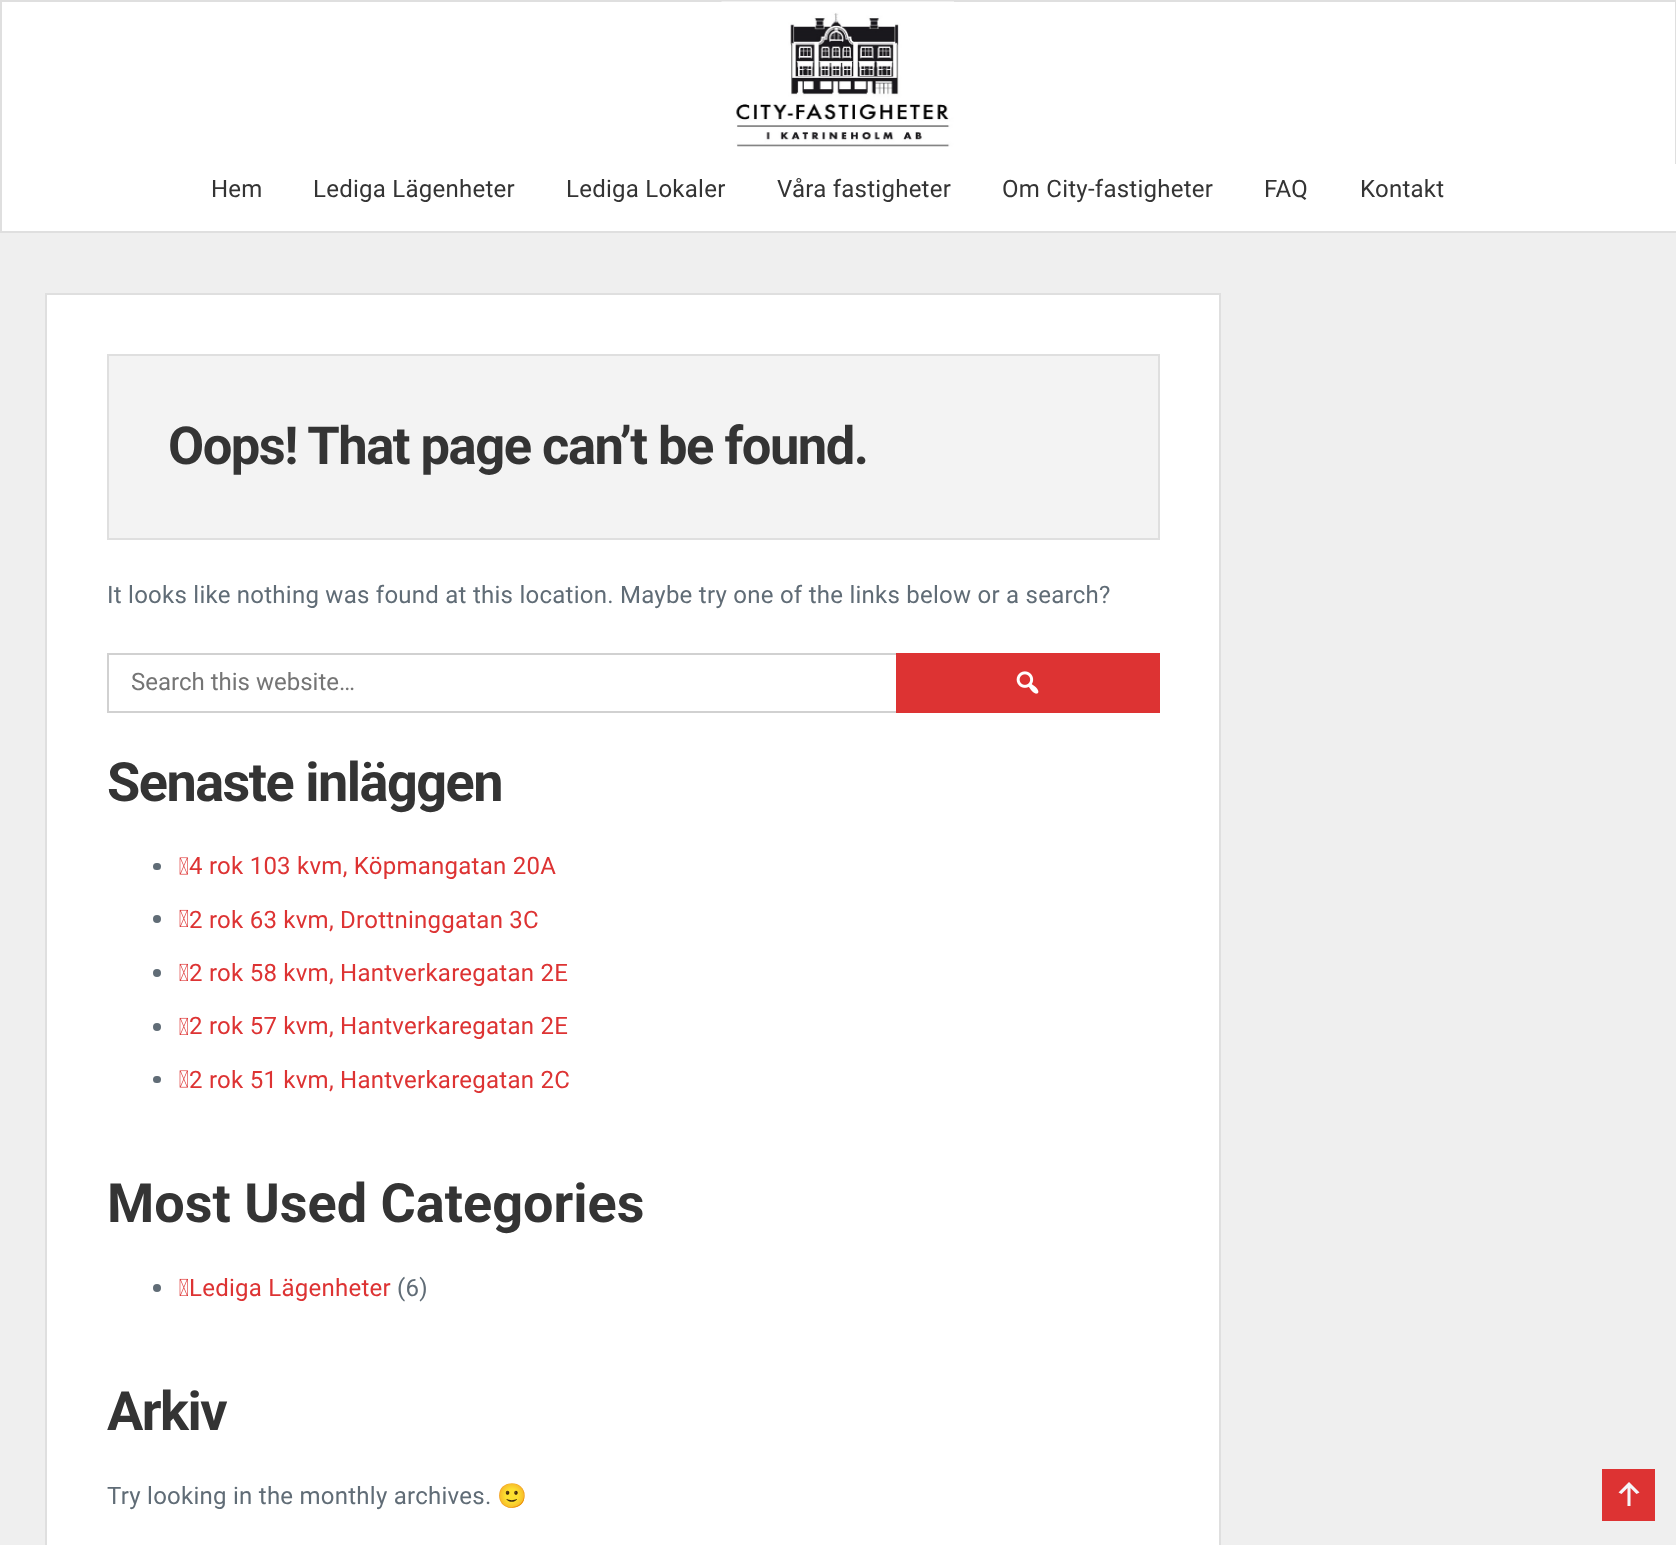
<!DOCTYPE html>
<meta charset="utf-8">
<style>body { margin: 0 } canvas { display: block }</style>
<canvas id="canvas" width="1676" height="1545"></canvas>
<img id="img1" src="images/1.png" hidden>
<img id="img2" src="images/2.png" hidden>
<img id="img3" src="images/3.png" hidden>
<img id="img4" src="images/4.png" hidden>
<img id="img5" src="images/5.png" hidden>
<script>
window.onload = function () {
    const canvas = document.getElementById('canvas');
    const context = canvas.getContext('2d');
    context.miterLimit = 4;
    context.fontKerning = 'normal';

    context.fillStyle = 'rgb(239, 239, 239)';
    context.fillRect(0, 0, 1676, 1545);
    context.fillStyle = 'rgb(255, 255, 255)';
    context.fillRect(2, 2, 1673, 162);
    context.strokeStyle = 'rgb(223, 223, 223)';
    context.lineWidth = 2;
    context.strokeRect(1, 1, 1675, 231);
    context.drawImage(document.getElementById('img1'), 721, 1, 233, 146);
    context.fillRect(2, 164, 1674, 67);
    context.beginPath();
    context.rect(46, 294, 1174, 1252);
    context.fill();
    context.stroke();
    context.fillStyle = 'rgb(243, 243, 243)';
    context.beginPath();
    context.rect(108, 355, 1051, 184);
    context.fill();
    context.stroke();
    context.fillStyle = 'rgb(209, 209, 209)';
    context.fillRect(107, 653, 789, 2);
    context.fillRect(107, 711, 789, 2);
    context.fillRect(107, 653, 2, 60);
    context.fillStyle = 'rgb(221, 51, 51)';
    context.fillRect(896, 653, 264, 60);
    context.drawImage(document.getElementById('img2'), 1016, 671, 23, 23);
    context.fillStyle = 'rgb(96, 108, 118)';
    context.beginPath();
    context.roundRect(153, 863, 8, 7, 3.5);
    context.fill();
    context.drawImage(document.getElementById('img3'), 179, 857, 9, 18);
    context.beginPath();
    context.arc(157, 919, 4, 0, 2 * Math.PI);
    context.fill();
    context.drawImage(document.getElementById('img4'), 179, 909, 9, 18);
    context.beginPath();
    context.arc(157, 973, 4, 0, 2 * Math.PI);
    context.fill();
    context.drawImage(document.getElementById('img4'), 179, 963, 9, 18);
    context.beginPath();
    context.arc(157, 1027, 4, 0, 2 * Math.PI);
    context.fill();
    context.drawImage(document.getElementById('img4'), 179, 1017, 9, 18);
    context.beginPath();
    context.roundRect(153, 1076, 8, 7, 3.5);
    context.fill();
    context.drawImage(document.getElementById('img3'), 179, 1070, 9, 18);
    context.beginPath();
    context.arc(157, 1288, 4, 0, 2 * Math.PI);
    context.fill();
    context.drawImage(document.getElementById('img4'), 179, 1278, 9, 18);
    context.fillStyle = 'rgb(221, 51, 51)';
    context.fillRect(1602, 1469, 53, 52);
    context.drawImage(document.getElementById('img5'), 1618, 1482, 22, 24);
    context.letterSpacing = '0.25px';
    context.font = '24px Roboto';
    context.fillStyle = 'rgb(52, 52, 52)';
    context.fillText('Hem', 211, 197);
    context.fillText('Lediga Lägenheter', 313, 197);
    context.fillText('Lediga Lokaler', 566, 197);
    context.fillText('Våra fastigheter', 777, 197);
    context.fillText('Om City-fastigheter', 1002, 197);
    context.fillText('FAQ', 1264, 197);
    context.fillText('Kontakt', 1360, 197);
    context.letterSpacing = '-1.5px';
    context.font = 'bold 52.5px Roboto';
    context.fillText('Oops! That page can’t be found.', 168, 464);
    context.letterSpacing = '0.25px';
    context.font = '24px Roboto';
    context.fillStyle = 'rgb(96, 108, 118)';
    context.fillText('It looks like nothing was found at this location. Maybe try one of the links below or a search?', 107, 603);
    context.letterSpacing = '0px';
    context.fillStyle = 'rgb(117, 117, 117)';
    context.fillText('Search this website…', 131, 690);
    context.letterSpacing = '-1.5px';
    context.font = 'bold 54px Roboto';
    context.fillStyle = 'rgb(52, 52, 52)';
    context.fillText('Senaste inläggen', 107, 801);
    context.letterSpacing = '0.25px';
    context.font = '24px Roboto';
    context.fillStyle = 'rgb(221, 51, 51)';
    context.fillText('4 rok 103 kvm, Köpmangatan 20A', 189, 874);
    context.fillText('2 rok 63 kvm, Drottninggatan 3C', 189, 928);
    context.fillText('2 rok 58 kvm, Hantverkaregatan 2E', 189, 981);
    context.fillText('2 rok 57 kvm, Hantverkaregatan 2E', 189, 1034);
    context.fillText('2 rok 51 kvm, Hantverkaregatan 2C', 189, 1088);
    context.letterSpacing = '0px';
    context.font = 'bold 54px Roboto';
    context.fillStyle = 'rgb(52, 52, 52)';
    context.fillText('Most Used Categories', 107, 1222);
    context.letterSpacing = '0.25px';
    context.font = '24px Roboto';
    context.fillStyle = 'rgb(221, 51, 51)';
    context.fillText('Lediga Lägenheter', 189, 1296);
    context.fillStyle = 'rgb(96, 108, 118)';
    context.fillText('(6)', 397, 1296);
    context.letterSpacing = '-1.5px';
    context.font = 'bold 54px Roboto';
    context.fillStyle = 'rgb(52, 52, 52)';
    context.fillText('Arkiv', 107, 1430);
    context.letterSpacing = '0.25px';
    context.font = '24px Roboto';
    context.fillStyle = 'rgb(96, 108, 118)';
    context.fillText('Try looking in the monthly archives.', 107, 1504);
    context.font = '24px Noto Color Emoji';
    context.fillText('🙂', 497, 1504);
};
</script>
